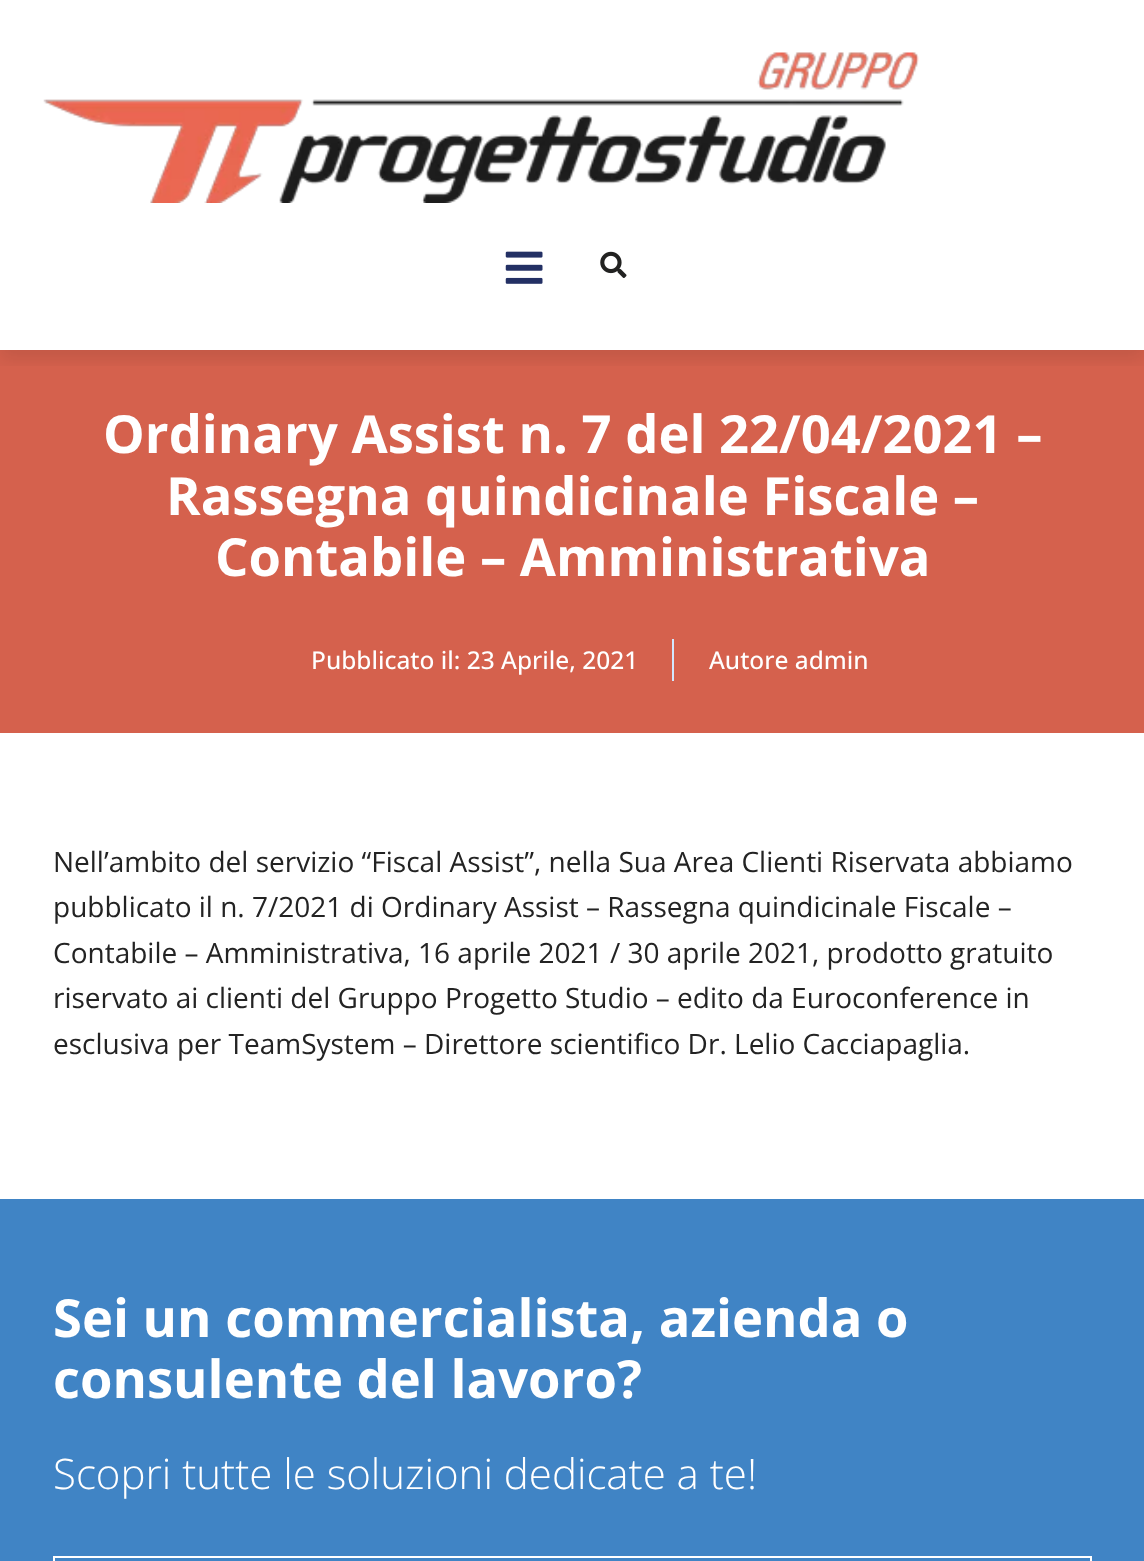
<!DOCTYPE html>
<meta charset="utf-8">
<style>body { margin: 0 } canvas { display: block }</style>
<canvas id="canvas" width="1144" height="1561"></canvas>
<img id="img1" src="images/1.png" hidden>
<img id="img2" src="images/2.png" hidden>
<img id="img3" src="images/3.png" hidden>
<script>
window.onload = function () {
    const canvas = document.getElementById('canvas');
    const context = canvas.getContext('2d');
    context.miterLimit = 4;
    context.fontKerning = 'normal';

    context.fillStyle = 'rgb(255, 255, 255)';
    context.fillRect(0, 0, 1144, 1561);
    context.fillStyle = 'rgb(213, 97, 77)';
    context.fillRect(0, 350, 1144, 383);
    context.save();
    context.beginPath();
    context.rect(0, 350, 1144, 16);
    context.clip();
    context.fillStyle = 'rgba(0, 0, 0, 0.09)';
    context.filter = 'blur(9px)';
    context.beginPath();
    context.rect(0, 9, 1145, 350);
    context.fill();
    context.filter = 'none';
    context.restore();
    context.drawImage(document.getElementById('img1'), 43, 52, 876, 151);
    context.drawImage(document.getElementById('img2'), 505, 251, 38, 33);
    context.drawImage(document.getElementById('img3'), 600, 251, 27, 27);
    context.fillStyle = 'rgb(211, 231, 254)';
    context.fillRect(672, 639, 2, 42);
    context.fillStyle = 'rgb(64, 132, 197)';
    context.fillRect(0, 1199, 1144, 362);
    context.strokeStyle = 'rgb(255, 255, 255)';
    context.lineWidth = 2;
    context.strokeRect(54, 1557, 1037, 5);
    context.font = 'bold 52.5px Open Sans';
    context.fillStyle = 'rgb(255, 255, 255)';
    context.fillText('Ordinary Assist n. 7 del 22/04/2021 –', 103, 453);
    context.fillText('Rassegna quindicinale Fiscale –', 166, 515);
    context.fillText('Contabile – Amministrativa', 215, 576);
    context.font = '500 24.5px Open Sans';
    context.fillText('Pubblicato il: 23 Aprile, 2021', 311, 669);
    context.fillText('Autore admin', 709, 669);
    context.font = '28px Open Sans';
    context.fillStyle = 'rgb(35, 35, 35)';
    context.fillText('Nell’ambito del servizio “Fiscal Assist”, nella Sua Area Clienti Riservata abbiamo', 53, 872);
    context.fillText('pubblicato il n. 7/2021 di Ordinary Assist – Rassegna quindicinale Fiscale –', 53, 917);
    context.fillText('Contabile – Amministrativa, 16 aprile 2021 / 30 aprile 2021, prodotto gratuito', 53, 963);
    context.fillText('riservato ai clienti del Gruppo Progetto Studio – edito da Euroconference in', 53, 1008);
    context.fillText('esclusiva per TeamSystem – Direttore scientifico Dr. Lelio Cacciapaglia.', 53, 1054);
    context.font = 'bold 52.5px Open Sans';
    context.fillStyle = 'rgb(255, 255, 255)';
    context.fillText('Sei un commercialista, azienda o', 53, 1337);
    context.fillText('consulente del lavoro?', 53, 1398);
    context.font = '300 42px Open Sans';
    context.fillText('Scopri tutte le soluzioni dedicate a te!', 53, 1489);
};
</script>
